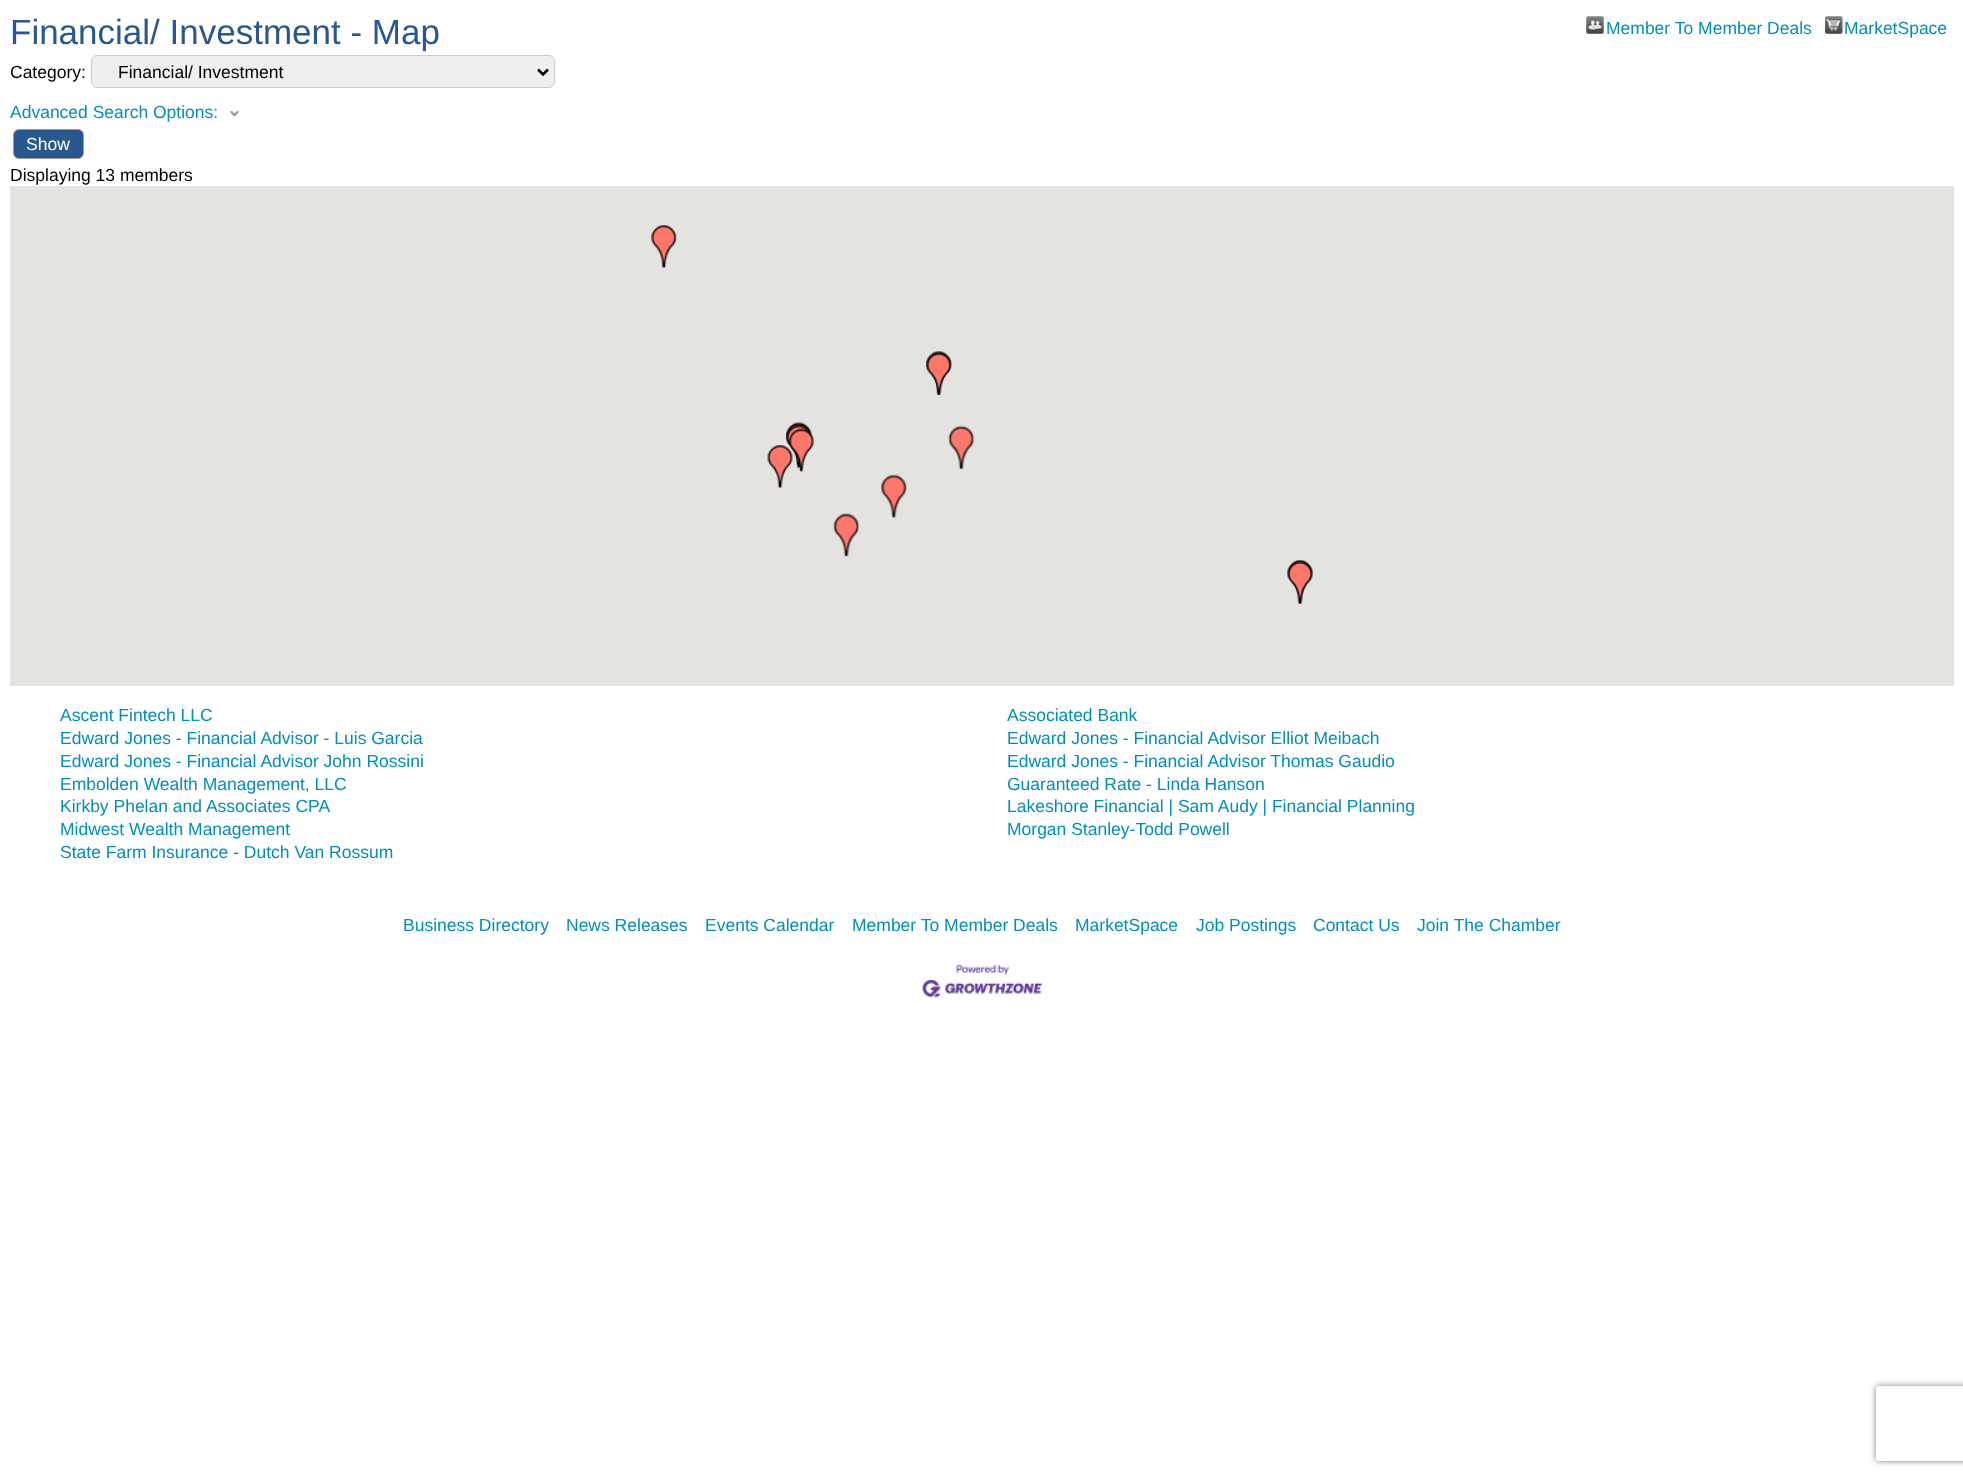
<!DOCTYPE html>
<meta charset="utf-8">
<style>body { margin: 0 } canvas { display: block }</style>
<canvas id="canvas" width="1963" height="1478"></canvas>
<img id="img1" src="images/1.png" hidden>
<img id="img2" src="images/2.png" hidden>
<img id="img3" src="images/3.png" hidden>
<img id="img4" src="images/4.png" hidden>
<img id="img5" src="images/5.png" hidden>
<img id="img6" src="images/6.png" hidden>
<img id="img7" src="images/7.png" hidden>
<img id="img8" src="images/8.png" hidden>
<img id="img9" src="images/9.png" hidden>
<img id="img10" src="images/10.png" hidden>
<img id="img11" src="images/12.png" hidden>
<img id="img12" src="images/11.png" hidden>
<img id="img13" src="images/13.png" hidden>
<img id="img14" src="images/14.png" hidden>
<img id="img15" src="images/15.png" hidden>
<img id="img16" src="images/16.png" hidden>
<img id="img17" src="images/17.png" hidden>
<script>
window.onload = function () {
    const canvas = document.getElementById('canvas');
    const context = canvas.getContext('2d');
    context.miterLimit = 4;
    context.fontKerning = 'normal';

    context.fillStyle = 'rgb(255, 255, 255)';
    context.fillRect(0, 0, 1963, 1478);
    context.drawImage(document.getElementById('img1'), 1586, 16, 18, 18);
    context.drawImage(document.getElementById('img2'), 1825, 16, 18, 18);
    context.fillStyle = 'rgb(239, 239, 239)';
    context.beginPath();
    context.roundRect(91.5, 55.5, 463, 32, 5.5);
    context.fill();
    context.strokeStyle = 'rgb(204, 204, 204)';
    context.stroke();
    context.beginPath();
    context.moveTo(538, 69.5);
    context.lineTo(543, 74.5);
    context.lineTo(548, 69.5);
    context.strokeStyle = 'rgb(0, 0, 0)';
    context.lineWidth = 2.5;
    context.stroke();
    context.drawImage(document.getElementById('img3'), 229, 111, 10, 6);
    context.fillStyle = 'rgb(41, 88, 142)';
    context.beginPath();
    context.roundRect(13.5, 129.5, 70, 29, 5.5);
    context.fill();
    context.strokeStyle = 'rgb(153, 153, 153)';
    context.lineWidth = 1;
    context.stroke();
    context.fillStyle = 'rgb(229, 227, 223)';
    context.fillRect(10, 186, 1944, 500);
    context.drawImage(document.getElementById('img4'), 651, 225, 26, 43);
    context.drawImage(document.getElementById('img5'), 926, 351, 26, 43);
    context.drawImage(document.getElementById('img6'), 926, 352, 26, 43);
    context.drawImage(document.getElementById('img7'), 786, 422, 26, 43);
    context.drawImage(document.getElementById('img8'), 786, 423, 26, 44);
    context.drawImage(document.getElementById('img9'), 786, 425, 26, 43);
    context.drawImage(document.getElementById('img10'), 948, 425, 27, 44);
    context.drawImage(document.getElementById('img11'), 788, 428, 26, 44);
    context.drawImage(document.getElementById('img12'), 767, 445, 26, 43);
    context.drawImage(document.getElementById('img13'), 881, 474, 26, 44);
    context.drawImage(document.getElementById('img14'), 833, 513, 27, 44);
    context.drawImage(document.getElementById('img15'), 1287, 560, 26, 43);
    context.drawImage(document.getElementById('img16'), 1287, 561, 26, 43);
    context.drawImage(document.getElementById('img17'), 922, 964, 121, 34);
    context.save();
    context.beginPath();
    context.moveTo(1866, 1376);
    context.lineTo(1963, 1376);
    context.lineTo(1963, 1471);
    context.lineTo(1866, 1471);
    context.closePath();
    context.moveTo(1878.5, 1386);
    context.lineTo(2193.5, 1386);
    context.bezierCurveTo(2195, 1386, 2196, 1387, 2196, 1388.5);
    context.lineTo(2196, 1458.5);
    context.bezierCurveTo(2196, 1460, 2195, 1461, 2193.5, 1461);
    context.lineTo(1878.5, 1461);
    context.bezierCurveTo(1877, 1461, 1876, 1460, 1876, 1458.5);
    context.lineTo(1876, 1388.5);
    context.bezierCurveTo(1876, 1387, 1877, 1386, 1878.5, 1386);
    context.closePath();
    context.clip('evenodd');
    context.fillStyle = 'rgb(128, 128, 128)';
    context.filter = 'blur(3px)';
    context.beginPath();
    context.roundRect(1876, 1386, 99, 75, 2.5);
    context.fill();
    context.filter = 'none';
    context.restore();
    context.font = '35px Liberation Sans';
    context.fillStyle = 'rgb(41, 88, 142)';
    context.fillText('Financial/ Investment - Map', 10, 44);
    context.font = '17.5px Liberation Sans';
    context.fillStyle = 'rgb(3, 141, 186)';
    context.fillText('Member To Member Deals', 1606, 34);
    context.fillText('MarketSpace', 1844, 34);
    context.fillStyle = 'rgb(0, 0, 0)';
    context.fillText('Category:', 10, 78);
    context.fillText('Financial/ Investment', 118, 78);
    context.fillStyle = 'rgb(3, 141, 186)';
    context.fillText('Advanced Search Options:', 10, 118);
    context.fillStyle = 'rgb(255, 255, 255)';
    context.fillText('Show', 26, 150);
    context.fillStyle = 'rgb(0, 0, 0)';
    context.fillText('Displaying 13 members', 10, 181);
    context.fillStyle = 'rgb(3, 141, 186)';
    context.fillText('Ascent Fintech LLC', 60, 721);
    context.fillText('Associated Bank', 1007, 721);
    context.fillText('Edward Jones - Financial Advisor - Luis Garcia', 60, 744);
    context.fillText('Edward Jones - Financial Advisor Elliot Meibach', 1007, 744);
    context.fillText('Edward Jones - Financial Advisor John Rossini', 60, 767);
    context.fillText('Edward Jones - Financial Advisor Thomas Gaudio', 1007, 767);
    context.fillText('Embolden Wealth Management, LLC', 60, 790);
    context.fillText('Guaranteed Rate - Linda Hanson', 1007, 790);
    context.fillText('Kirkby Phelan and Associates CPA', 60, 812);
    context.fillText('Lakeshore Financial | Sam Audy | Financial Planning', 1007, 812);
    context.fillText('Midwest Wealth Management', 60, 835);
    context.fillText('Morgan Stanley-Todd Powell', 1007, 835);
    context.fillText('State Farm Insurance - Dutch Van Rossum', 60, 858);
    context.fillText('Business Directory', 403, 931);
    context.fillText('News Releases', 566, 931);
    context.fillText('Events Calendar', 705, 931);
    context.fillText('Member To Member Deals', 852, 931);
    context.fillText('MarketSpace', 1075, 931);
    context.fillText('Job Postings', 1196, 931);
    context.fillText('Contact Us', 1313, 931);
    context.fillText('Join The Chamber', 1417, 931);
};
</script>
